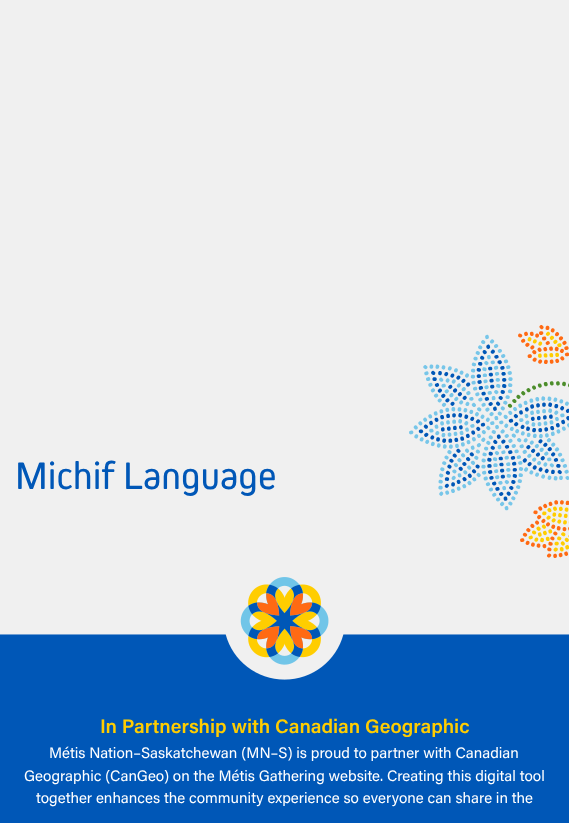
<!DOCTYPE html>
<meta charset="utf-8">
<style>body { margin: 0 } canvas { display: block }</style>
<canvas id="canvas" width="569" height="823"></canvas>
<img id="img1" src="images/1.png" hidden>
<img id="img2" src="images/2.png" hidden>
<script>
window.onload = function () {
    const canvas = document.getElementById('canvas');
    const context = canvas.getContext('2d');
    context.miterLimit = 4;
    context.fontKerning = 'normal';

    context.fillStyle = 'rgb(240, 240, 240)';
    context.fillRect(0, 0, 569, 823);
    context.drawImage(document.getElementById('img1'), 409, 325, 160, 233);
    context.drawImage(document.getElementById('img2'), 0, 577, 569, 105);
    context.fillStyle = 'rgb(0, 87, 183)';
    context.fillRect(0, 682, 569, 141);
    context.font = '40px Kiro';
    context.fillText('Michif Language', 15, 489);
    context.font = '600 19.6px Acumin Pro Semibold';
    context.fillStyle = 'rgb(255, 205, 0)';
    context.fillText('In Partnership with Canadian Geographic', 100, 733);
    context.font = '15.1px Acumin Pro';
    context.fillStyle = 'rgb(255, 255, 255)';
    context.fillText('Métis Nation–Saskatchewan (MN–S) is proud to partner with Canadian', 49, 758);
    context.fillText('Geographic (CanGeo) on the Métis Gathering website. Creating this digital tool', 24, 781);
    context.fillText('together enhances the community experience so everyone can share in the', 36, 803);
};
</script>
